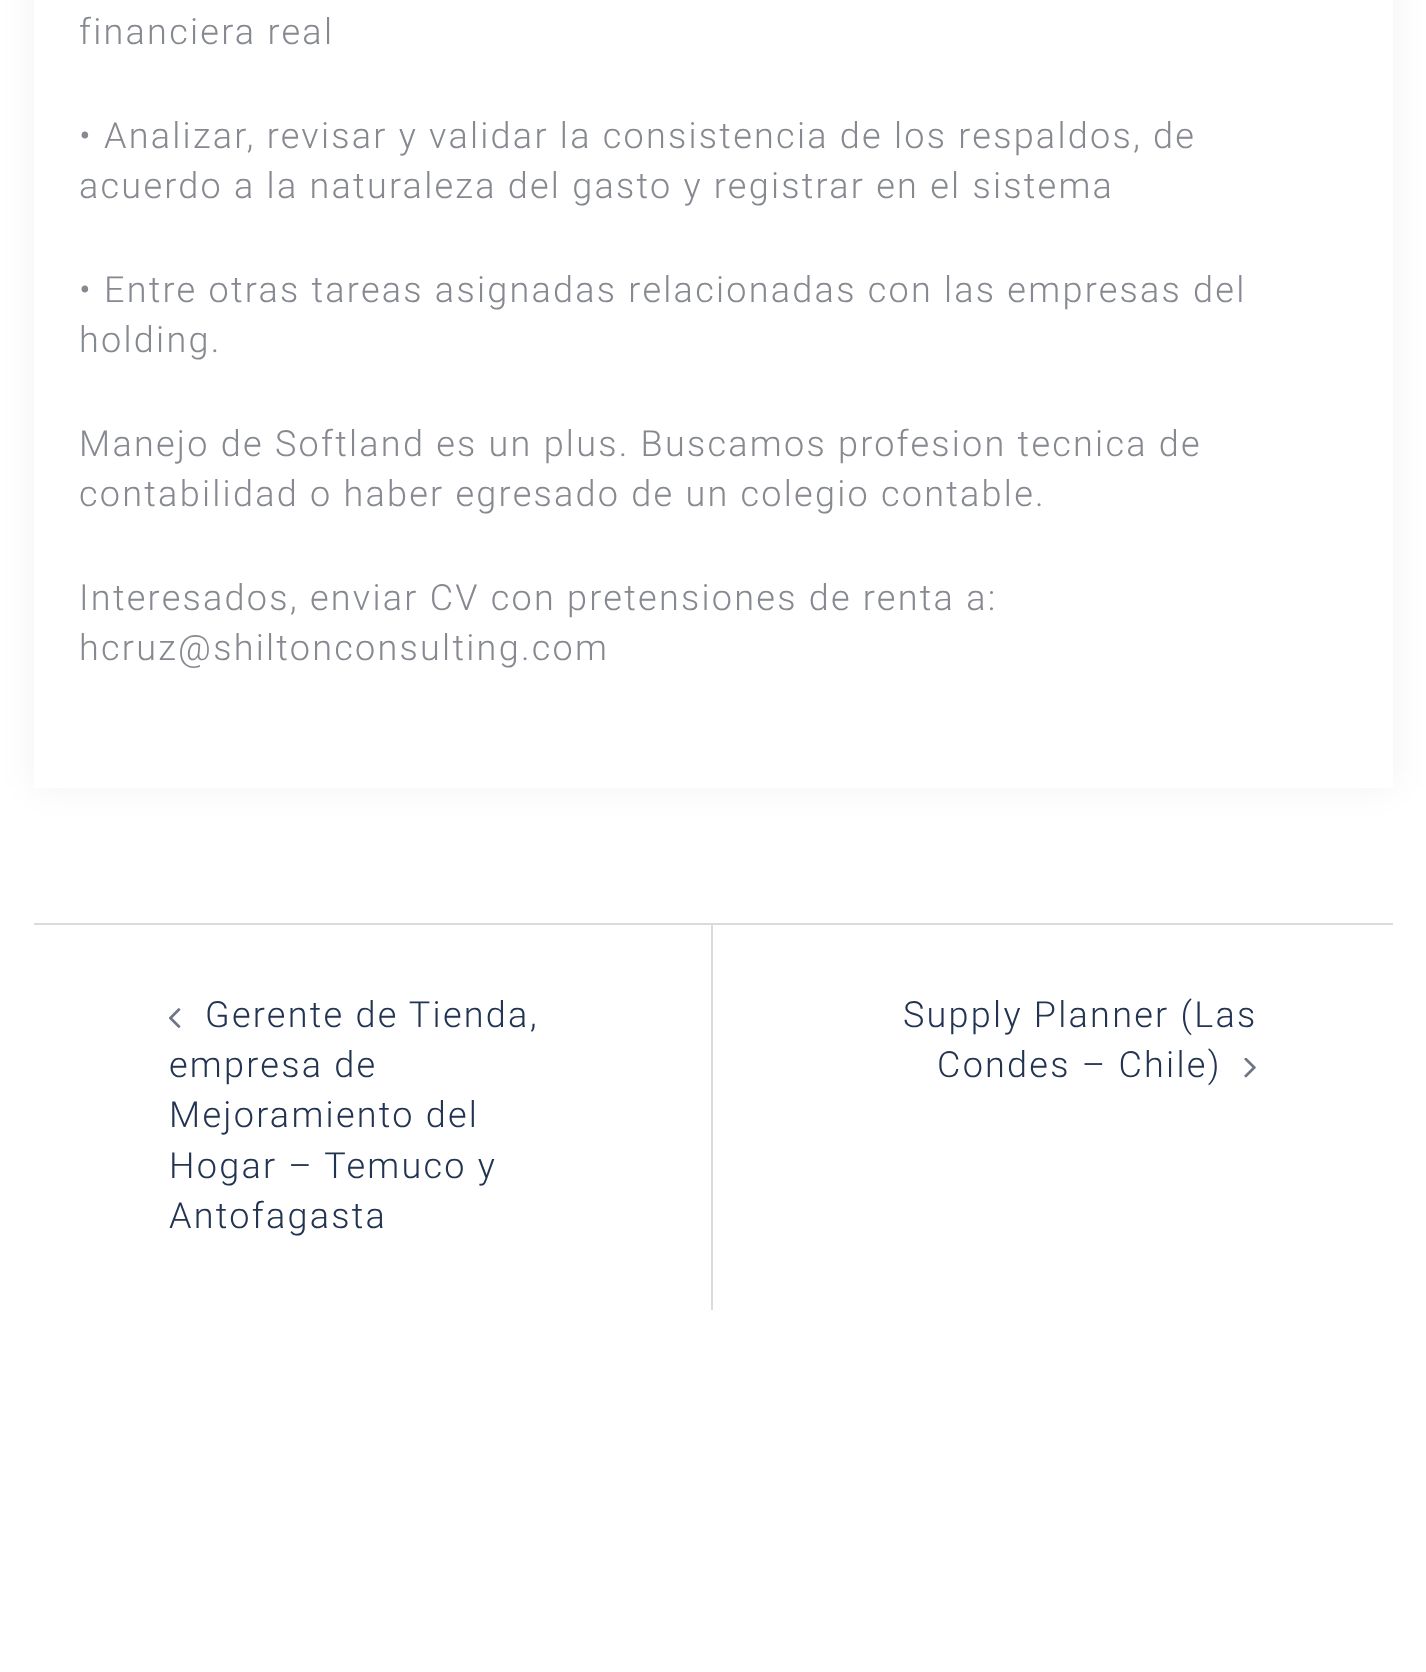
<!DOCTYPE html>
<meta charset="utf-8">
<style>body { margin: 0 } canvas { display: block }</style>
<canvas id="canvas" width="1426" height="1672"></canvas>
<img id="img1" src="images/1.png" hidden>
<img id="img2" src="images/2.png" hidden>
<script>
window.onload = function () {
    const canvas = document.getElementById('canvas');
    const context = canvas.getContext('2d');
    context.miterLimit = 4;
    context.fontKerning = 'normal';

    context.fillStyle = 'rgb(255, 255, 255)';
    context.fillRect(0, 0, 1426, 1672);
    context.fillStyle = 'rgba(0, 0, 0, 0.05)';
    context.filter = 'blur(17px)';
    context.beginPath();
    context.rect(34, -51, 1359, 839);
    context.fill();
    context.filter = 'none';
    context.fillStyle = 'rgb(255, 255, 255)';
    context.fillRect(34, 0, 1359, 788);
    context.fillStyle = 'rgb(219, 219, 219)';
    context.fillRect(34, 923, 1359, 2);
    context.fillRect(711, 925, 2, 385);
    context.drawImage(document.getElementById('img1'), 169, 1008, 12, 20);
    context.drawImage(document.getElementById('img2'), 1244, 1058, 12, 20);
    context.letterSpacing = '2.25px';
    context.font = '300 36px Roboto';
    context.fillStyle = 'rgb(134, 137, 144)';
    context.fillText('financiera real', 79, 44);
    context.fillText('• Analizar, revisar y validar la consistencia de los respaldos, de', 79, 148);
    context.fillText('acuerdo a la naturaleza del gasto y registrar en el sistema', 79, 198);
    context.fillText('• Entre otras tareas asignadas relacionadas con las empresas del', 79, 302);
    context.fillText('holding.', 79, 352);
    context.fillText('Manejo de Softland es un plus. Buscamos profesion tecnica de', 79, 456);
    context.fillText('contabilidad o haber egresado de un colegio contable.', 79, 506);
    context.fillText('Interesados, enviar CV con pretensiones de renta a:', 79, 610);
    context.fillText('hcruz@shiltonconsulting.com', 79, 660);
    context.fillStyle = 'rgb(35, 52, 82)';
    context.fillText('Gerente de Tienda,', 205, 1027);
    context.fillText('empresa de', 169, 1077);
    context.fillText('Mejoramiento del', 169, 1127);
    context.fillText('Hogar – Temuco y', 169, 1178);
    context.fillText('Antofagasta', 169, 1228);
    context.fillText('Supply Planner (Las', 903, 1027);
    context.fillText('Condes – Chile)', 937, 1077);
};
</script>
